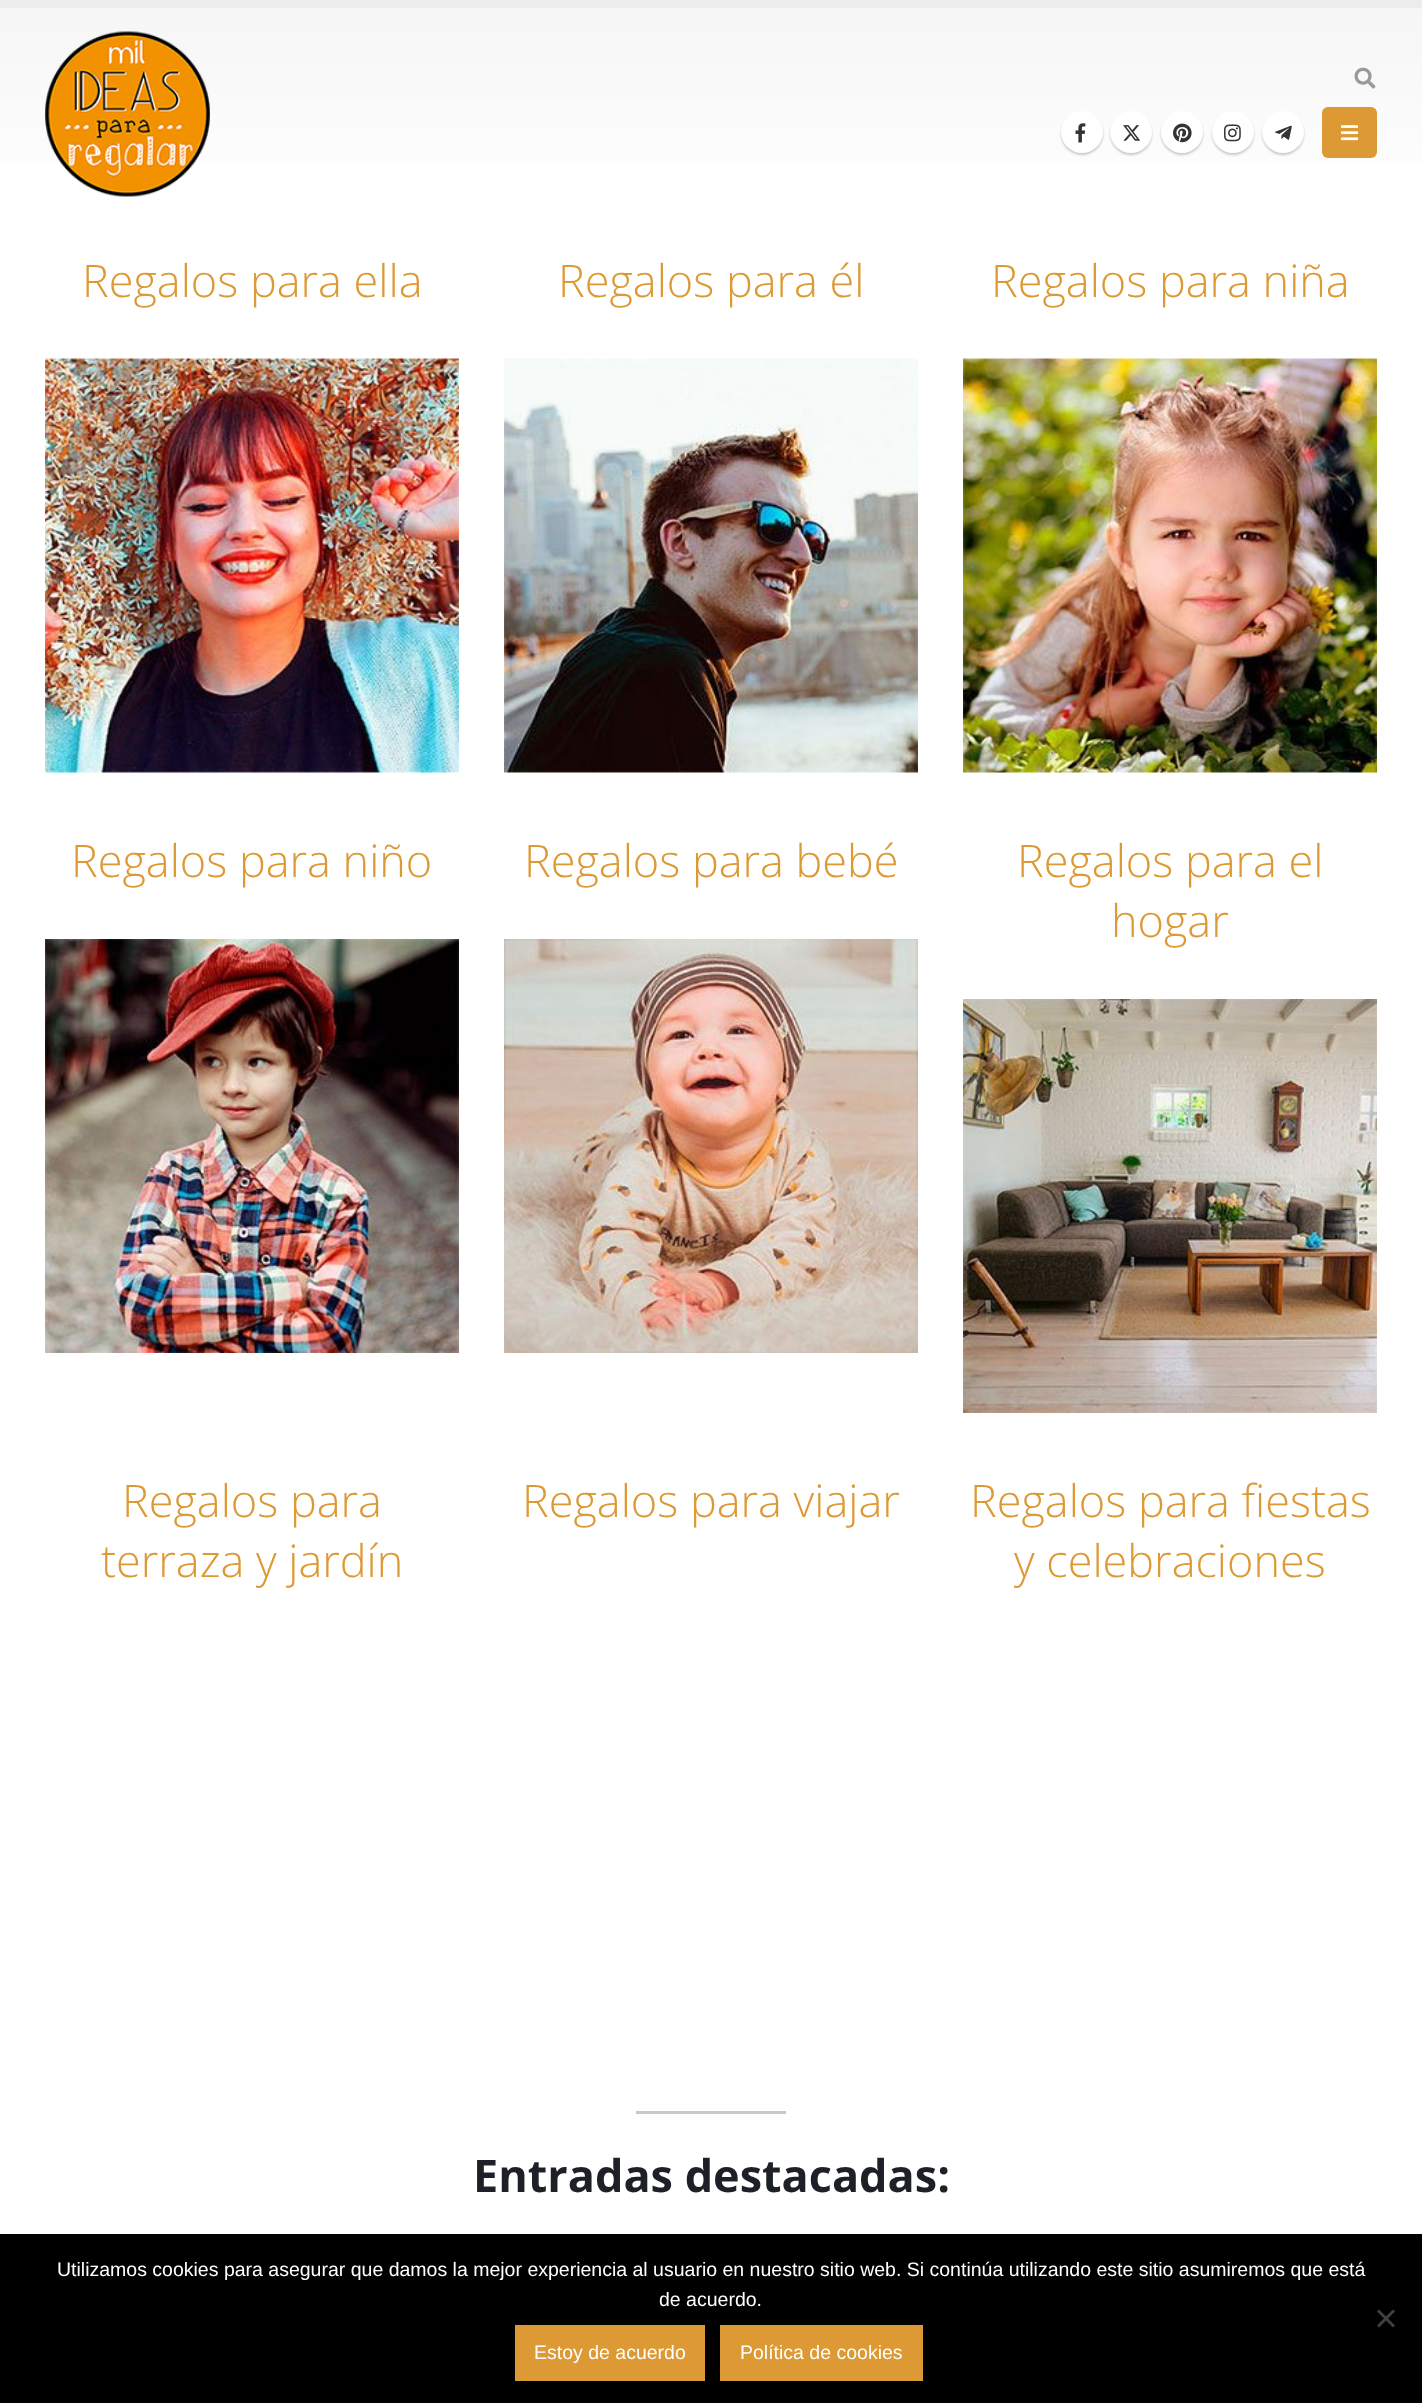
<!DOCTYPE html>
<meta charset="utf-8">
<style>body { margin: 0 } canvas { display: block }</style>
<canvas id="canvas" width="1422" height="2403"></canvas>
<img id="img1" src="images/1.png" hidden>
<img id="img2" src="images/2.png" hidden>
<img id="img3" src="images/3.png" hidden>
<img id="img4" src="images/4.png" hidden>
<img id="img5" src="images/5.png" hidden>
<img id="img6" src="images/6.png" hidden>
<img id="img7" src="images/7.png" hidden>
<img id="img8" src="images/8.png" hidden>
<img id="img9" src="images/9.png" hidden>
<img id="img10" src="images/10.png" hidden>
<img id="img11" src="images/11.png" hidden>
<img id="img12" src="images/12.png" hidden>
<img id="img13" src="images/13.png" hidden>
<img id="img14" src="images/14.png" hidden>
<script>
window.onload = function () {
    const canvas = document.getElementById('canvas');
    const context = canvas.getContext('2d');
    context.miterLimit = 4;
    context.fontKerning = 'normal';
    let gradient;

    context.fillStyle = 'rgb(255, 255, 255)';
    context.fillRect(0, 0, 1422, 2403);
    context.fillStyle = 'rgb(237, 237, 237)';
    context.fillRect(0, 0, 1422, 8);
    gradient = context.createLinearGradient(711, 7.5, 711, 221);
    gradient.addColorStop(0, 'rgb(246, 246, 246)');
    gradient.addColorStop(1, 'rgb(255, 255, 255)');
    context.fillStyle = gradient;
    context.fillRect(0, 8, 1422, 154);
    context.drawImage(document.getElementById('img1'), 45, 31, 165, 166);
    context.drawImage(document.getElementById('img2'), 1354, 67, 22, 22);
    context.fillStyle = 'rgba(0, 0, 0, 0.2)';
    context.filter = 'blur(1px)';
    context.beginPath();
    context.roundRect(1061, 113, 42, 42, 21);
    context.fill();
    context.filter = 'none';
    context.fillStyle = 'rgb(255, 255, 255)';
    context.beginPath();
    context.arc(1082, 132, 21, 0, 2 * Math.PI);
    context.fill();
    context.drawImage(document.getElementById('img3'), 1075, 123, 11, 20);
    context.fillStyle = 'rgba(0, 0, 0, 0.2)';
    context.filter = 'blur(1px)';
    context.beginPath();
    context.roundRect(1110, 113, 42, 42, 21);
    context.fill();
    context.filter = 'none';
    context.fillStyle = 'rgb(255, 255, 255)';
    context.beginPath();
    context.arc(1131, 132, 21, 0, 2 * Math.PI);
    context.fill();
    context.drawImage(document.getElementById('img4'), 1123, 125, 18, 16);
    context.fillStyle = 'rgba(0, 0, 0, 0.2)';
    context.filter = 'blur(1px)';
    context.beginPath();
    context.roundRect(1161, 113, 42, 42, 21);
    context.fill();
    context.filter = 'none';
    context.fillStyle = 'rgb(255, 255, 255)';
    context.beginPath();
    context.arc(1182, 132, 21, 0, 2 * Math.PI);
    context.fill();
    context.drawImage(document.getElementById('img5'), 1173, 123, 19, 20);
    context.fillStyle = 'rgba(0, 0, 0, 0.2)';
    context.filter = 'blur(1px)';
    context.beginPath();
    context.roundRect(1212, 113, 42, 42, 21);
    context.fill();
    context.filter = 'none';
    context.fillStyle = 'rgb(255, 255, 255)';
    context.beginPath();
    context.arc(1233, 132, 21, 0, 2 * Math.PI);
    context.fill();
    context.drawImage(document.getElementById('img6'), 1224, 124, 17, 18);
    context.fillStyle = 'rgba(0, 0, 0, 0.2)';
    context.filter = 'blur(1px)';
    context.beginPath();
    context.roundRect(1262, 113, 42, 42, 21);
    context.fill();
    context.filter = 'none';
    context.fillStyle = 'rgb(255, 255, 255)';
    context.beginPath();
    context.arc(1283, 132, 21, 0, 2 * Math.PI);
    context.fill();
    context.drawImage(document.getElementById('img7'), 1275, 125, 17, 15);
    context.fillStyle = 'rgb(221, 153, 51)';
    context.beginPath();
    context.roundRect(1322, 107, 55, 51, 6);
    context.fill();
    context.drawImage(document.getElementById('img8'), 1341, 125, 18, 16);
    context.drawImage(document.getElementById('img9'), 45, 358, 414, 415);
    context.drawImage(document.getElementById('img10'), 504, 358, 414, 415);
    context.drawImage(document.getElementById('img11'), 963, 358, 414, 415);
    context.drawImage(document.getElementById('img12'), 45, 939, 414, 414);
    context.drawImage(document.getElementById('img13'), 504, 939, 414, 414);
    context.drawImage(document.getElementById('img14'), 963, 999, 414, 414);
    context.fillStyle = 'rgb(201, 201, 201)';
    context.fillRect(636, 2111, 150, 3);
    context.fillStyle = 'rgb(0, 0, 0)';
    context.fillRect(0, 2234, 1422, 169);
    context.fillStyle = 'rgb(64, 64, 64)';
    context.beginPath();
    context.moveTo(1393, 2309.5);
    context.lineTo(1395, 2311.5);
    context.lineTo(1379, 2327.5);
    context.lineTo(1377, 2325.5);
    context.closePath();
    context.fill();
    context.beginPath();
    context.moveTo(1377, 2311.5);
    context.lineTo(1379, 2309.5);
    context.lineTo(1395, 2325.5);
    context.lineTo(1393, 2327.5);
    context.closePath();
    context.fill();
    context.fillStyle = 'rgb(221, 153, 51)';
    context.fillRect(515, 2325, 190, 56);
    context.fillRect(720, 2325, 203, 56);
    context.font = '300 45px Open Sans';
    context.fillText('Regalos para ella', 82, 297);
    context.fillText('Regalos para él', 558, 297);
    context.fillText('Regalos para niña', 991, 297);
    context.fillText('Regalos para niño', 71, 877);
    context.fillText('Regalos para bebé', 524, 877);
    context.fillText('Regalos para el', 1017, 877);
    context.fillText('hogar', 1111, 937);
    context.fillText('Regalos para', 122, 1517);
    context.fillText('terraza y jardín', 101, 1577);
    context.fillText('Regalos para viajar', 522, 1517);
    context.fillText('Regalos para fiestas', 970, 1517);
    context.fillText('y celebraciones', 1014, 1577);
    context.font = 'bold 45px Open Sans';
    context.fillStyle = 'rgb(29, 33, 39)';
    context.fillText('Entradas destacadas:', 473, 2192);
    context.font = '19.5px Liberation Sans';
    context.fillStyle = 'rgb(255, 255, 255)';
    context.fillText('Utilizamos cookies para asegurar que damos la mejor experiencia al usuario en nuestro sitio web. Si continúa utilizando este sitio asumiremos que está', 57, 2276);
    context.fillText('de acuerdo.', 659, 2306);
    context.fillText('Estoy de acuerdo', 534, 2359);
    context.fillText('Política de cookies', 740, 2359);
};
</script>
